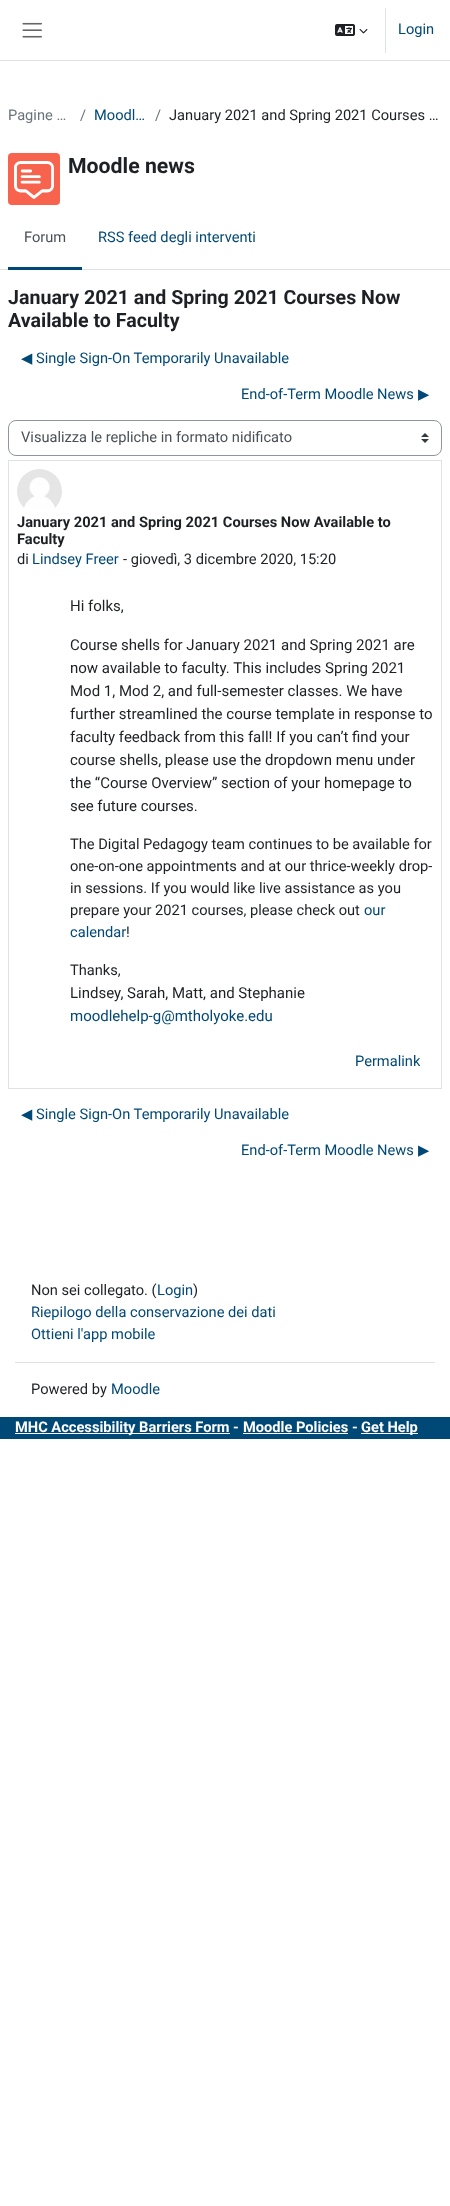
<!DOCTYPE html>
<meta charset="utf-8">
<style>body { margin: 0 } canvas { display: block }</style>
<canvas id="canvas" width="450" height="2206"></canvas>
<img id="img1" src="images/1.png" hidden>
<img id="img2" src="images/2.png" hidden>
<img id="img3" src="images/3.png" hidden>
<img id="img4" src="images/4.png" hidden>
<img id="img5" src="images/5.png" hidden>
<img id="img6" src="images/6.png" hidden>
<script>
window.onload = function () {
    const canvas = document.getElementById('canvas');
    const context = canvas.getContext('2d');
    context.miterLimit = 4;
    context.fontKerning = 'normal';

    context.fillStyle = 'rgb(255, 255, 255)';
    context.fillRect(0, 0, 450, 2206);
    context.fillStyle = 'rgb(222, 226, 230)';
    context.fillRect(0, 60, 450, 1);
    context.drawImage(document.getElementById('img1'), 22, 22, 20, 16);
    context.drawImage(document.getElementById('img2'), 335, 24, 20, 12);
    context.drawImage(document.getElementById('img3'), 359, 29, 9, 5);
    context.fillRect(385, 8, 1, 45);
    context.fillStyle = 'rgb(247, 99, 77)';
    context.beginPath();
    context.roundRect(8, 153, 52, 52, 4);
    context.fill();
    context.drawImage(document.getElementById('img4'), 14, 161, 40, 38);
    context.fillStyle = 'rgb(222, 226, 230)';
    context.fillRect(0, 269, 450, 1);
    context.fillStyle = 'rgb(0, 72, 118)';
    context.fillRect(8, 267, 74, 3);
    context.drawImage(document.getElementById('img5'), 421, 433, 8, 10);
    context.beginPath();
    context.roundRect(8.5, 420.5, 433, 35, 7.5);
    context.strokeStyle = 'rgb(143, 149, 158)';
    context.stroke();
    context.strokeStyle = 'rgb(222, 226, 230)';
    context.strokeRect(8.5, 460.5, 433, 628);
    context.drawImage(document.getElementById('img6'), 17, 469, 45, 39);
    context.fillStyle = 'rgb(222, 226, 230)';
    context.fillRect(15, 1362, 420, 1);
    context.fillStyle = 'rgb(0, 72, 118)';
    context.fillRect(0, 1417, 450, 22);
    context.fillStyle = 'rgb(255, 255, 255)';
    context.fillRect(15, 1433, 215, 1);
    context.fillRect(243, 1433, 105, 1);
    context.fillRect(361, 1433, 57, 1);
    context.font = '14.65px Roboto';
    context.fillStyle = 'rgb(0, 72, 118)';
    context.fillText('Login', 398, 34);
    context.fillStyle = 'rgb(106, 115, 123)';
    context.fillText('Pagine …', 8, 120);
    context.fillText('/', 80, 120);
    context.fillStyle = 'rgb(0, 72, 118)';
    context.fillText('Moodl…', 94, 120);
    context.fillStyle = 'rgb(106, 115, 123)';
    context.fillText('/', 155, 120);
    context.fillStyle = 'rgb(29, 33, 37)';
    context.fillText('January 2021 and Spring 2021 Courses …', 169, 120);
    context.font = 'bold 21.25px Roboto';
    context.fillText('Moodle news', 68, 173);
    context.font = '14.65px Roboto';
    context.fillStyle = 'rgb(73, 80, 87)';
    context.fillText('Forum', 24, 242);
    context.fillStyle = 'rgb(0, 72, 118)';
    context.fillText('RSS feed degli interventi', 98, 242);
    context.font = 'bold 19.6px Roboto';
    context.fillStyle = 'rgb(29, 33, 37)';
    context.fillText('January 2021 and Spring 2021 Courses Now', 8, 304);
    context.fillText('Available to Faculty', 8, 327);
    context.font = '14.65px DejaVu Sans';
    context.fillStyle = 'rgb(0, 72, 118)';
    context.fillText('◀︎', 21, 363);
    context.font = '14.65px Roboto';
    context.fillText('Single Sign-On Temporarily Unavailable', 36, 363);
    context.fillText('End-of-Term Moodle News', 241, 399);
    context.font = '14.65px DejaVu Sans';
    context.fillText('▶︎', 418, 399);
    context.font = '14.65px Roboto';
    context.fillStyle = 'rgb(73, 80, 87)';
    context.fillText('Visualizza le repliche in formato nidificato', 21, 442);
    context.font = 'bold 14.65px Roboto';
    context.fillStyle = 'rgb(29, 33, 37)';
    context.fillText('January 2021 and Spring 2021 Courses Now Available to', 17, 527);
    context.fillText('Faculty', 17, 544);
    context.font = '14.65px Roboto';
    context.fillText('di', 17, 564);
    context.fillStyle = 'rgb(0, 72, 118)';
    context.fillText('Lindsey Freer', 32, 564);
    context.fillStyle = 'rgb(29, 33, 37)';
    context.fillText('- giovedì, 3 dicembre 2020, 15:20', 123, 564);
    context.font = '15px Roboto';
    context.fillText('Hi folks,', 70, 611);
    context.fillText('Course shells for January 2021 and Spring 2021 are', 70, 650);
    context.fillText('now available to faculty. This includes Spring 2021', 70, 673);
    context.fillText('Mod 1, Mod 2, and full-semester classes. We have', 70, 696);
    context.fillText('further streamlined the course template in response to', 70, 719);
    context.fillText('faculty feedback from this fall! If you can’t find your', 70, 742);
    context.fillText('course shells, please use the dropdown menu under', 70, 765);
    context.fillText('the “Course Overview” section of your homepage to', 70, 788);
    context.fillText('see future courses.', 70, 811);
    context.font = '14.65px Roboto';
    context.fillText('The Digital Pedagogy team continues to be available for', 70, 849);
    context.fillText('one-on-one appointments and at our thrice-weekly drop-', 70, 871);
    context.fillText('in sessions. If you would like live assistance as you', 70, 893);
    context.fillText('prepare your 2021 courses, please check out', 70, 915);
    context.fillStyle = 'rgb(0, 72, 118)';
    context.fillText('our', 364, 915);
    context.fillText('calendar', 70, 937);
    context.fillStyle = 'rgb(29, 33, 37)';
    context.fillText('!', 126, 937);
    context.fillText('Thanks,', 70, 975);
    context.font = '15px Roboto';
    context.fillText('Lindsey, Sarah, Matt, and Stephanie', 70, 998);
    context.fillStyle = 'rgb(0, 72, 118)';
    context.fillText('moodlehelp-g@mtholyoke.edu', 70, 1021);
    context.font = '14.65px Roboto';
    context.fillText('Permalink', 355, 1066);
    context.font = '14.65px DejaVu Sans';
    context.fillText('◀︎', 21, 1119);
    context.font = '14.65px Roboto';
    context.fillText('Single Sign-On Temporarily Unavailable', 36, 1119);
    context.fillText('End-of-Term Moodle News', 241, 1155);
    context.font = '14.65px DejaVu Sans';
    context.fillText('▶︎', 418, 1155);
    context.font = '14.65px Roboto';
    context.fillStyle = 'rgb(29, 33, 37)';
    context.fillText('Non sei collegato. (', 31, 1295);
    context.fillStyle = 'rgb(0, 72, 118)';
    context.fillText('Login', 157, 1295);
    context.fillStyle = 'rgb(29, 33, 37)';
    context.fillText(')', 193, 1295);
    context.fillStyle = 'rgb(0, 72, 118)';
    context.fillText('Riepilogo della conservazione dei dati', 31, 1317);
    context.fillText('Ottieni l\'app mobile', 31, 1339);
    context.fillStyle = 'rgb(29, 33, 37)';
    context.fillText('Powered by', 31, 1394);
    context.fillStyle = 'rgb(0, 72, 118)';
    context.fillText('Moodle', 111, 1394);
    context.font = 'bold 14.65px Roboto';
    context.fillStyle = 'rgb(255, 255, 255)';
    context.fillText('MHC Accessibility Barriers Form', 15, 1432);
    context.fillStyle = 'rgb(248, 249, 250)';
    context.fillText('-', 233, 1432);
    context.fillStyle = 'rgb(255, 255, 255)';
    context.fillText('Moodle Policies', 243, 1432);
    context.fillStyle = 'rgb(248, 249, 250)';
    context.fillText('-', 352, 1432);
    context.fillStyle = 'rgb(255, 255, 255)';
    context.fillText('Get Help', 361, 1432);
};
</script>
